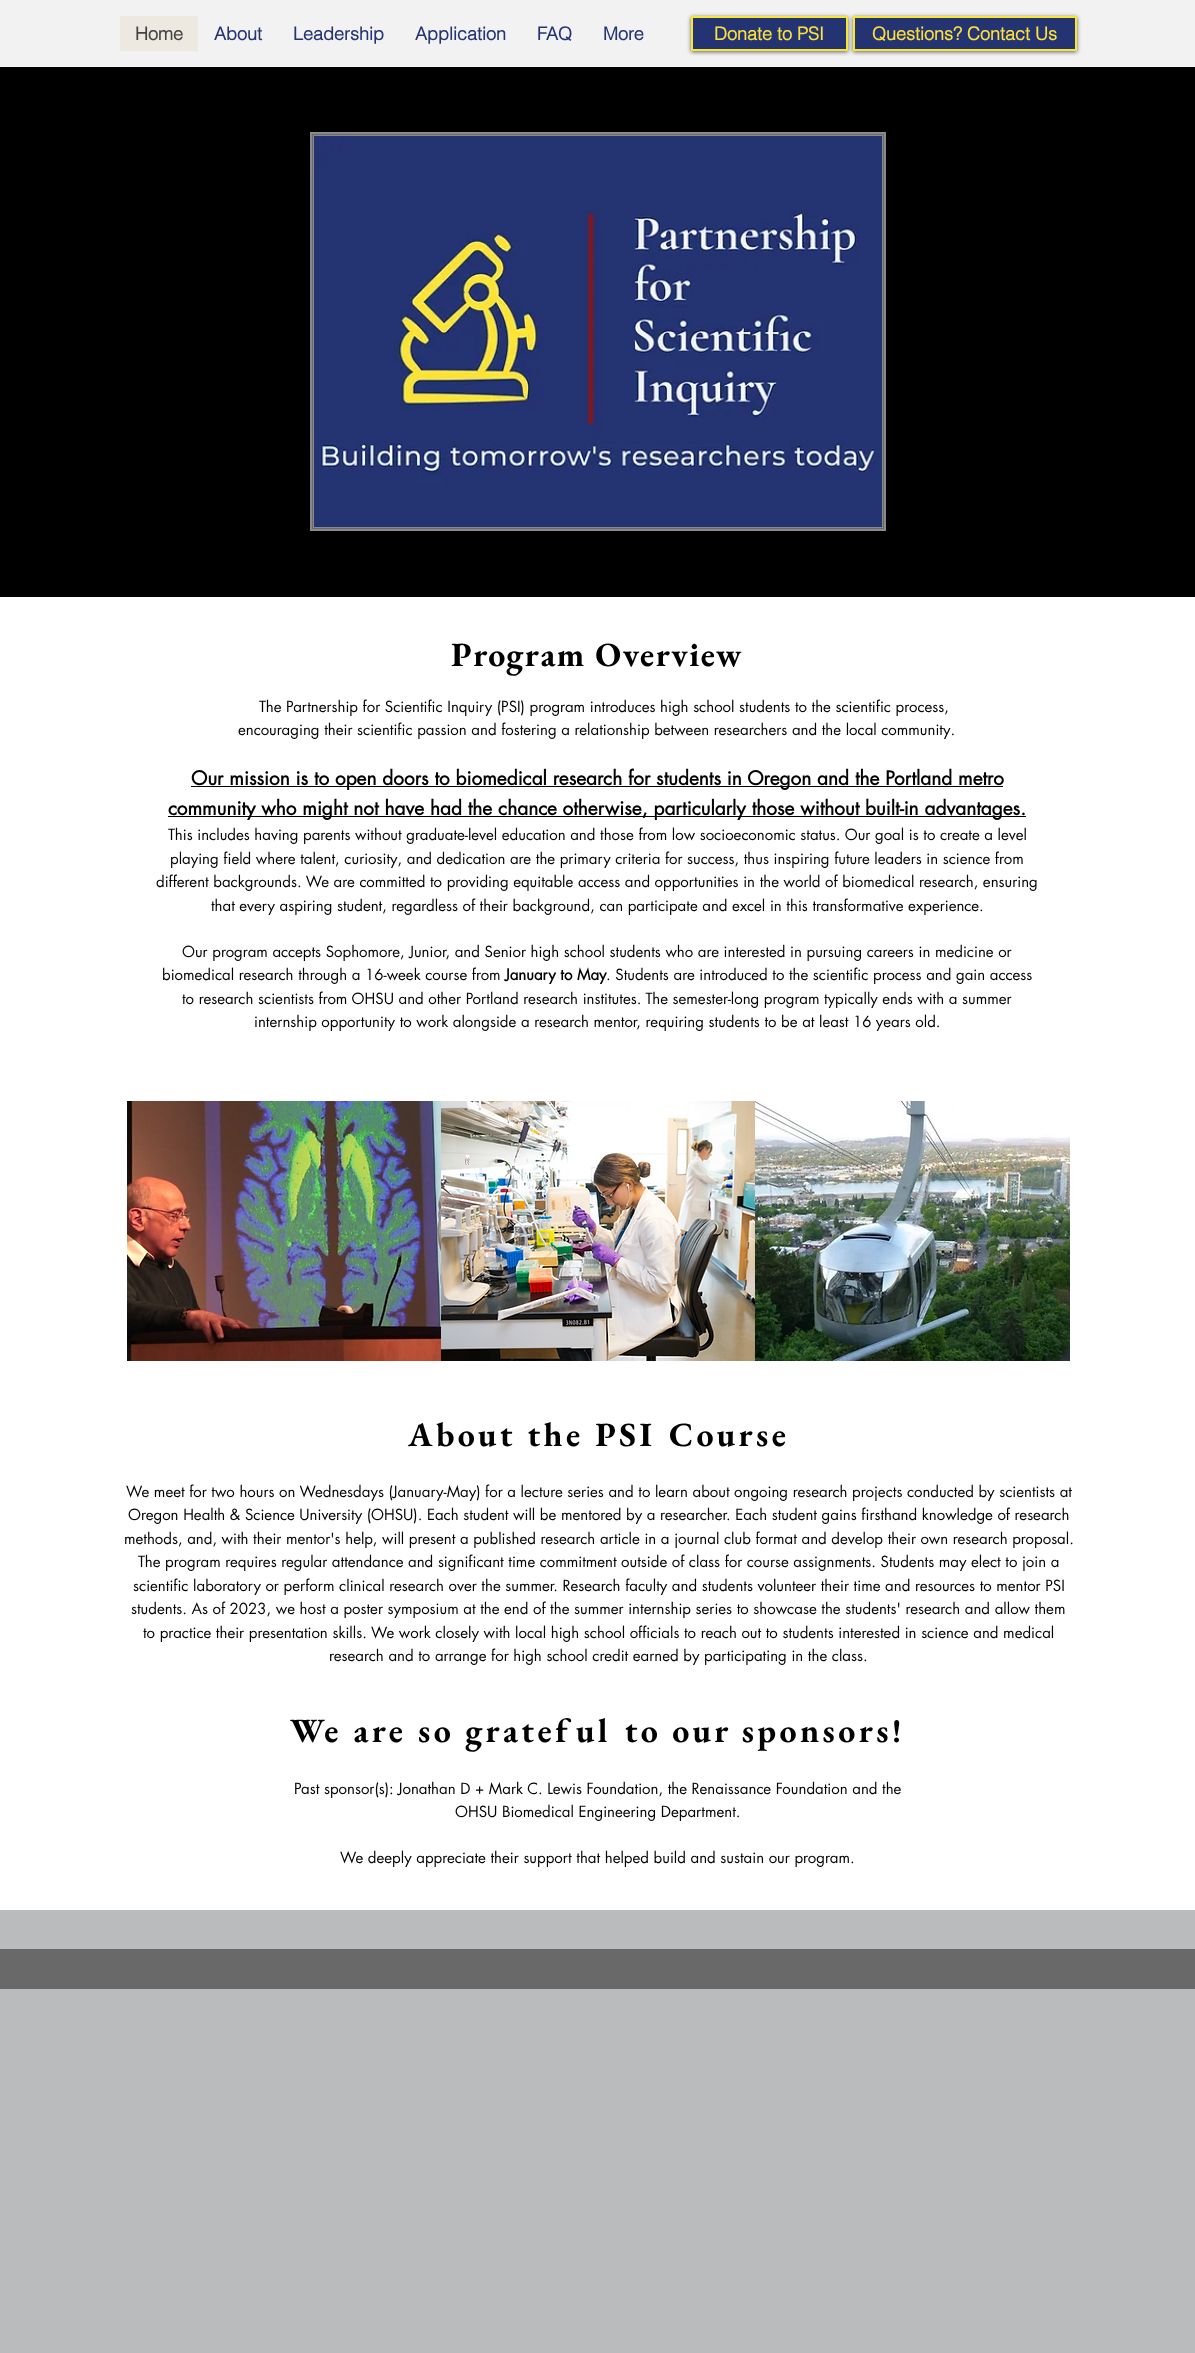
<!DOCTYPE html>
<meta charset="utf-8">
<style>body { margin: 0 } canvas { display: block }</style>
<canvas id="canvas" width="1195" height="2353"></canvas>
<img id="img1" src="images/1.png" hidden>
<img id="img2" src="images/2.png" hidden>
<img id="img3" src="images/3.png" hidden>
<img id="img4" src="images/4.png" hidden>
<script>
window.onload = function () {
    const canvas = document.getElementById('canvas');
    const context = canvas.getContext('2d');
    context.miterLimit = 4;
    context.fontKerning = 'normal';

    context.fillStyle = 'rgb(185, 187, 189)';
    context.fillRect(0, 0, 1195, 2353);
    context.fillStyle = 'rgb(242, 242, 242)';
    context.fillRect(0, 0, 1195, 67);
    context.fillStyle = 'rgb(237, 233, 225)';
    context.fillRect(120, 16, 78, 35);
    context.fillStyle = 'rgba(0, 0, 0, 0.6)';
    context.filter = 'blur(2px)';
    context.beginPath();
    context.rect(691, 17, 157, 35);
    context.fill();
    context.filter = 'none';
    context.fillStyle = 'rgb(36, 51, 114)';
    context.beginPath();
    context.rect(692, 17, 155, 33);
    context.fill();
    context.strokeStyle = 'rgb(248, 230, 47)';
    context.lineWidth = 2;
    context.stroke();
    context.fillStyle = 'rgba(0, 0, 0, 0.6)';
    context.filter = 'blur(2px)';
    context.beginPath();
    context.rect(853, 17, 224, 35);
    context.fill();
    context.filter = 'none';
    context.fillStyle = 'rgb(36, 51, 114)';
    context.beginPath();
    context.rect(854, 17, 222, 33);
    context.fill();
    context.stroke();
    context.fillStyle = 'rgb(0, 0, 0)';
    context.fillRect(0, 67, 1195, 530);
    context.fillStyle = 'rgb(138, 138, 138)';
    context.fillRect(310, 132, 576, 399);
    context.drawImage(document.getElementById('img1'), 314, 136, 568, 391);
    context.strokeStyle = 'rgb(105, 105, 105)';
    context.lineWidth = 1;
    context.strokeRect(312.5, 134.5, 571, 394);
    context.fillStyle = 'rgb(255, 255, 255)';
    context.fillRect(0, 597, 1195, 1313);
    context.fillStyle = 'rgb(0, 0, 0)';
    context.fillRect(191, 786, 812, 1);
    context.fillRect(168, 816, 858, 1);
    context.drawImage(document.getElementById('img2'), 127, 1101, 314, 260);
    context.drawImage(document.getElementById('img3'), 441, 1101, 314, 260);
    context.drawImage(document.getElementById('img4'), 755, 1101, 315, 260);
    context.fillStyle = 'rgb(105, 105, 105)';
    context.fillRect(0, 1949, 1195, 40);
    context.font = 'bold 18px helvetica';
    context.fillStyle = 'rgb(68, 68, 68)';
    context.fillText('Home', 135, 40);
    context.fillStyle = 'rgb(36, 51, 114)';
    context.fillText('About', 214, 40);
    context.fillText('Leadership', 293, 40);
    context.fillText('Application', 415, 40);
    context.fillText('FAQ', 537, 40);
    context.fillText('More', 603, 40);
    context.fillStyle = 'rgb(254, 226, 60)';
    context.fillText('Donate to PSI', 714, 40);
    context.fillText('Questions? Contact Us', 872, 40);
    context.letterSpacing = '1.5px';
    context.font = 'bold 34px EB Garamond';
    context.fillStyle = 'rgb(0, 0, 0)';
    context.fillText('Program Overview', 451, 666);
    context.letterSpacing = '0px';
    context.font = '15px futura';
    context.fillText('The Partnership for Scientific Inquiry (PSI) program introduces high school students to the scientific process,', 259, 712);
    context.fillText('encouraging their scientific passion and fostering a relationship between researchers and the local community.', 238, 735);
    context.font = 'bold 19px futura';
    context.fillText('Our mission is to open doors to biomedical research for students in Oregon and the Portland metro', 191, 785);
    context.fillText('community who might not have had the chance otherwise, particularly those without built-in advantages.', 168, 815);
    context.font = '15px futura';
    context.fillText('This includes having parents without graduate-level education and those from low socioeconomic status. Our goal is to create a level', 168, 840);
    context.fillText('playing field where talent, curiosity, and dedication are the primary criteria for success, thus inspiring future leaders in science from', 170, 864);
    context.fillText('different backgrounds. We are committed to providing equitable access and opportunities in the world of biomedical research, ensuring', 156, 887);
    context.fillText('that every aspiring student, regardless of their background, can participate and excel in this transformative experience.', 211, 911);
    context.fillText('Our program accepts Sophomore, Junior, and Senior high school students who are interested in pursuing careers in medicine or', 182, 957);
    context.fillText('biomedical research through a 16-week course from', 162, 980);
    context.font = 'bold 15px futura';
    context.fillText('January to May', 505, 980);
    context.font = '15px futura';
    context.fillText('. Students are introduced to the scientific process and gain access', 606, 980);
    context.fillText('to research scientists from OHSU and other Portland research institutes. The semester-long program typically ends with a summer', 182, 1004);
    context.fillText('internship opportunity to work alongside a research mentor, requiring students to be at least 16 years old.', 254, 1027);
    context.letterSpacing = '3.4px';
    context.font = 'bold 34px EB Garamond';
    context.fillText('About the PSI Course', 408, 1446);
    context.letterSpacing = '0px';
    context.font = '15px futura';
    context.fillText('We meet for two hours on Wednesdays (January-May) for a lecture series and to learn about ongoing research projects conducted by scientists at', 126, 1497);
    context.fillText('Oregon Health & Science University (OHSU). Each student will be mentored by a researcher. Each student gains firsthand knowledge of research', 128, 1520);
    context.fillText('methods, and, with their mentor\'s help, will present a published research article in a journal club format and develop their own research proposal.', 124, 1544);
    context.fillText('The program requires regular attendance and significant time commitment outside of class for course assignments. Students may elect to join a', 138, 1567);
    context.fillText('scientific laboratory or perform clinical research over the summer. Research faculty and students volunteer their time and resources to mentor PSI', 133, 1591);
    context.fillText('students. As of 2023, we host a poster symposium at the end of the summer internship series to showcase the students\' research and allow them', 131, 1614);
    context.fillText('to practice their presentation skills. We work closely with local high school officials to reach out to students interested in science and medical', 143, 1638);
    context.fillText('research and to arrange for high school credit earned by participating in the class.', 329, 1661);
    context.letterSpacing = '3.4px';
    context.font = 'bold 34px EB Garamond';
    context.fillText('We are so grateful to our sponsors!', 290, 1742);
    context.letterSpacing = '0px';
    context.font = '15px futura';
    context.fillText('Past sponsor(s): Jonathan D + Mark C. Lewis Foundation, the Renaissance Foundation and the', 294, 1794);
    context.fillText('OHSU Biomedical Engineering Department.', 455, 1817);
    context.fillText('We deeply appreciate their support that helped build and sustain our program.', 340, 1863);
};
</script>
